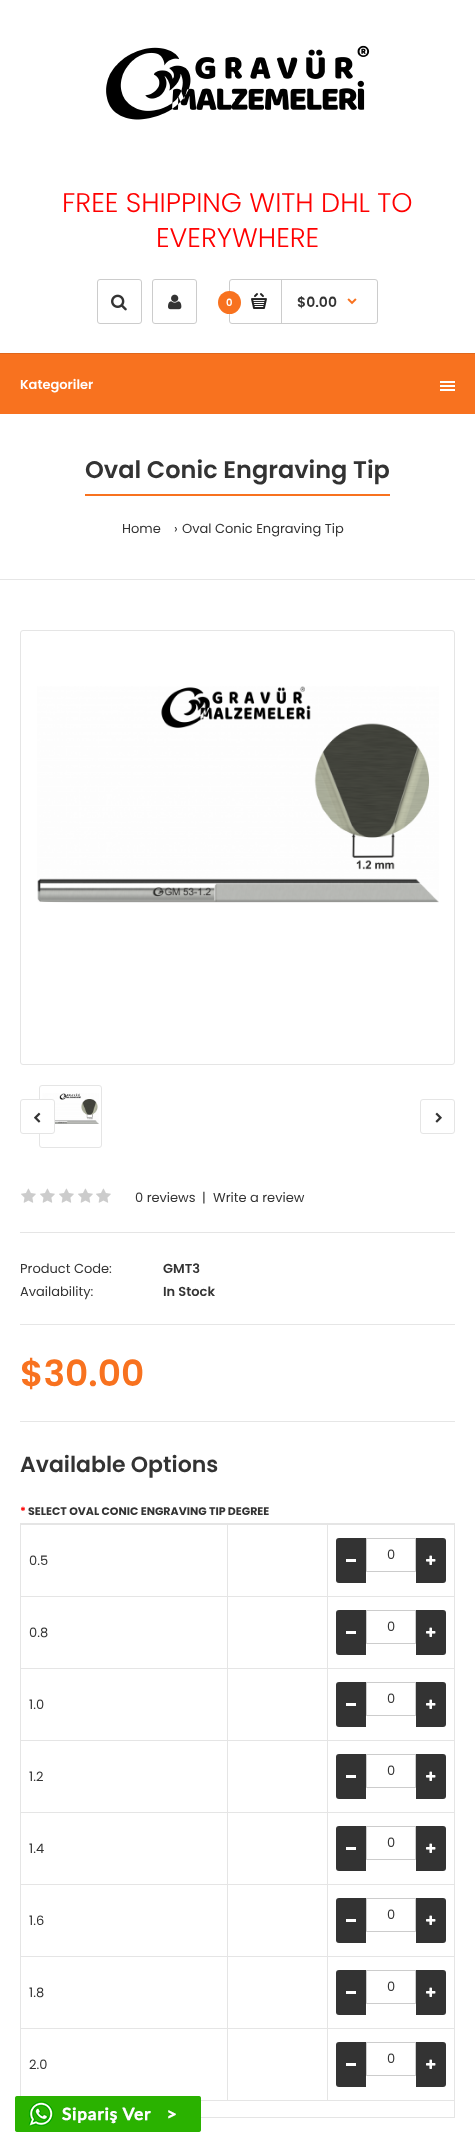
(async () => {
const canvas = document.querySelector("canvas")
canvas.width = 475
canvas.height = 2153
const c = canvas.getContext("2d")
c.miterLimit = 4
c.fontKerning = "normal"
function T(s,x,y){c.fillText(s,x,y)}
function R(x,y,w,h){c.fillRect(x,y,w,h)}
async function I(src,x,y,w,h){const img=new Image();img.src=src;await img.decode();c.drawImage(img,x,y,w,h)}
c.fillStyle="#fff"
R(0,0,475,2153)
await I("1.png",106,45,264,75)
c.font="300 27px Poppins"
c.fillStyle="#f00"
T("FREE SHIPPING WITH DHL TO",62,212)
T("EVERYWHERE",156,247)
c.beginPath()
c.roundRect(97.5,279.5,44,44,2.5)
c.strokeStyle="#ccc"
c.stroke()
await I("2.png",111,294,16,17)
c.beginPath()
c.roundRect(152.5,279.5,44,44,2.5)
c.stroke()
await I("3.png",168,294,14,16)
c.beginPath()
c.roundRect(229.5,279.5,148,44,2.5)
c.stroke()
c.fillStyle="#f8721f"
c.beginPath()
c.arc(229.5,302.5,11.5,0,7)
c.fill()
c.font="600 10px Poppins"
c.fillStyle="#fff"
T("0",226,306)
c.fillStyle="#ccc"
R(281,280,1,43)
await I("4.png",251,293,16,16)
c.font="600 14px Poppins"
c.fillStyle="#333"
T("$0.00",297,307)
await I("5.png",347,298,10,7)
c.fillStyle="#f8721f"
R(0,354,475,60)
c.fillStyle="#df671c"
R(0,353,475,1)
c.font="600 13px Poppins"
c.fillStyle="#fff"
T("Kategoriler",20,389)
R(440,381,15,2)
R(440,385,15,2)
R(440,389,15,2)
c.fillStyle="#e6e6e6"
R(0,579,475,1)
c.fillStyle="#f8721f"
R(85,494,305,2)
c.font="600 24px Poppins"
c.fillStyle="#333"
T("Oval Conic Engraving Tip",85,478)
c.font="13px Poppins"
T("Home",122,533)
T("›",174,533)
T("Oval Conic Engraving Tip",182,533)
c.beginPath()
c.roundRect(20.5,630.5,434,434,2.5)
c.strokeStyle="#e5e5e5"
c.stroke()
await I("6.png",37,686,402,217)
c.beginPath()
c.roundRect(39.5,1085.5,62,62,2.5)
c.stroke()
await I("7.png",42,1093,57,31)
c.fillStyle="#fff"
c.beginPath()
c.roundRect(20.5,1099.5,34,34,2.5)
c.fill()
c.stroke()
await I("8.png",34,1112,7,11)
c.beginPath()
c.roundRect(420.5,1099.5,34,34,2.5)
c.stroke()
await I("9.png",435,1112,7,11)
c.fillStyle="#e5e5e5"
R(20,1232,435,1)
await I("10.png",21,1188,15,15)
await I("10.png",40,1188,15,15)
await I("10.png",59,1188,15,15)
await I("10.png",78,1188,15,15)
await I("10.png",96,1188,15,15)
c.fillStyle="#333"
T("0 reviews",135,1202)
T("|",202,1202)
T("Write a review",213,1202)
c.fillStyle="#e6e6e6"
R(20,1324,435,1)
c.fillStyle="#333"
T("Product Code:",20,1273)
c.font="600 13px Poppins"
T("GMT3",163,1273)
c.font="13px Poppins"
T("Availability:",20,1296)
c.font="600 13px Poppins"
T("In Stock",163,1296)
c.font="600 36px Poppins"
c.fillStyle="#f8721f"
T("$30.00",20,1386)
c.fillStyle="#e6e6e6"
R(20,1421,435,1)
c.font="600 22px Poppins"
c.fillStyle="#333"
T("Available Options",20,1472)
c.font="bold 11px Poppins"
c.fillStyle="#f00"
T("*",20,1515)
c.fillStyle="#333"
T("SELECT OVAL CONIC ENGRAVING TIP DEGREE",28,1515)
c.strokeRect(20.5,1523.5,434,594)
c.fillStyle="#e5e5e5"
R(21,1524,433,1)
R(227,1524,1,72)
R(327,1524,1,72)
c.fillStyle="#333"
c.beginPath()
c.roundRect(336,1538,30,45,[3,0,0,3])
c.fill()
c.fillStyle="#fff"
R(346,1559,10,3)
c.strokeStyle="#ccc"
c.strokeRect(366.5,1538.5,49,33)
c.font="13px Poppins"
c.fillStyle="#333"
T("0",387,1559)
c.beginPath()
c.roundRect(416,1538,30,45,[0,3,3,0])
c.fill()
await I("11.png",426,1555,10,10)
T("0.5",29,1565)
c.fillStyle="#e5e5e5"
R(21,1596,433,1)
R(227,1596,1,72)
R(327,1596,1,72)
c.fillStyle="#333"
c.beginPath()
c.roundRect(336,1610,30,45,[3,0,0,3])
c.fill()
c.fillStyle="#fff"
R(346,1631,10,3)
c.strokeRect(366.5,1610.5,49,33)
c.fillStyle="#333"
T("0",387,1631)
c.beginPath()
c.roundRect(416,1610,30,45,[0,3,3,0])
c.fill()
await I("11.png",426,1627,10,10)
T("0.8",29,1637)
c.fillStyle="#e5e5e5"
R(21,1668,433,1)
R(227,1668,1,72)
R(327,1668,1,72)
c.fillStyle="#333"
c.beginPath()
c.roundRect(336,1682,30,45,[3,0,0,3])
c.fill()
c.fillStyle="#fff"
R(346,1703,10,3)
c.strokeRect(366.5,1682.5,49,33)
c.fillStyle="#333"
T("0",387,1703)
c.beginPath()
c.roundRect(416,1682,30,45,[0,3,3,0])
c.fill()
await I("11.png",426,1699,10,10)
T("1.0",29,1709)
c.fillStyle="#e5e5e5"
R(21,1740,433,1)
R(227,1740,1,72)
R(327,1740,1,72)
c.fillStyle="#333"
c.beginPath()
c.roundRect(336,1754,30,45,[3,0,0,3])
c.fill()
c.fillStyle="#fff"
R(346,1775,10,3)
c.strokeRect(366.5,1754.5,49,33)
c.fillStyle="#333"
T("0",387,1775)
c.beginPath()
c.roundRect(416,1754,30,45,[0,3,3,0])
c.fill()
await I("11.png",426,1771,10,10)
T("1.2",29,1781)
c.fillStyle="#e5e5e5"
R(21,1812,433,1)
R(227,1812,1,72)
R(327,1812,1,72)
c.fillStyle="#333"
c.beginPath()
c.roundRect(336,1826,30,45,[3,0,0,3])
c.fill()
c.fillStyle="#fff"
R(346,1847,10,3)
c.strokeRect(366.5,1826.5,49,33)
c.fillStyle="#333"
T("0",387,1847)
c.beginPath()
c.roundRect(416,1826,30,45,[0,3,3,0])
c.fill()
await I("11.png",426,1843,10,10)
T("1.4",29,1853)
c.fillStyle="#e5e5e5"
R(21,1884,433,1)
R(227,1884,1,72)
R(327,1884,1,72)
c.fillStyle="#333"
c.beginPath()
c.roundRect(336,1898,30,45,[3,0,0,3])
c.fill()
c.fillStyle="#fff"
R(346,1919,10,3)
c.strokeRect(366.5,1898.5,49,33)
c.fillStyle="#333"
T("0",387,1919)
c.beginPath()
c.roundRect(416,1898,30,45,[0,3,3,0])
c.fill()
await I("11.png",426,1915,10,10)
T("1.6",29,1925)
c.fillStyle="#e5e5e5"
R(21,1956,433,1)
R(227,1956,1,72)
R(327,1956,1,72)
c.fillStyle="#333"
c.beginPath()
c.roundRect(336,1970,30,45,[3,0,0,3])
c.fill()
c.fillStyle="#fff"
R(346,1991,10,3)
c.strokeRect(366.5,1970.5,49,33)
c.fillStyle="#333"
T("0",387,1991)
c.beginPath()
c.roundRect(416,1970,30,45,[0,3,3,0])
c.fill()
await I("11.png",426,1987,10,10)
T("1.8",29,1997)
c.fillStyle="#e5e5e5"
R(21,2028,433,1)
R(227,2028,1,72)
R(327,2028,1,72)
c.fillStyle="#333"
c.beginPath()
c.roundRect(336,2042,30,45,[3,0,0,3])
c.fill()
c.fillStyle="#fff"
R(346,2063,10,3)
c.strokeRect(366.5,2042.5,49,33)
c.fillStyle="#333"
T("0",387,2063)
c.beginPath()
c.roundRect(416,2042,30,45,[0,3,3,0])
c.fill()
await I("11.png",426,2059,10,10)
T("2.0",29,2069)
c.fillStyle="#e5e5e5"
R(201,2100,253,1)
await I("12.png",15,2096,186,36)
})()
